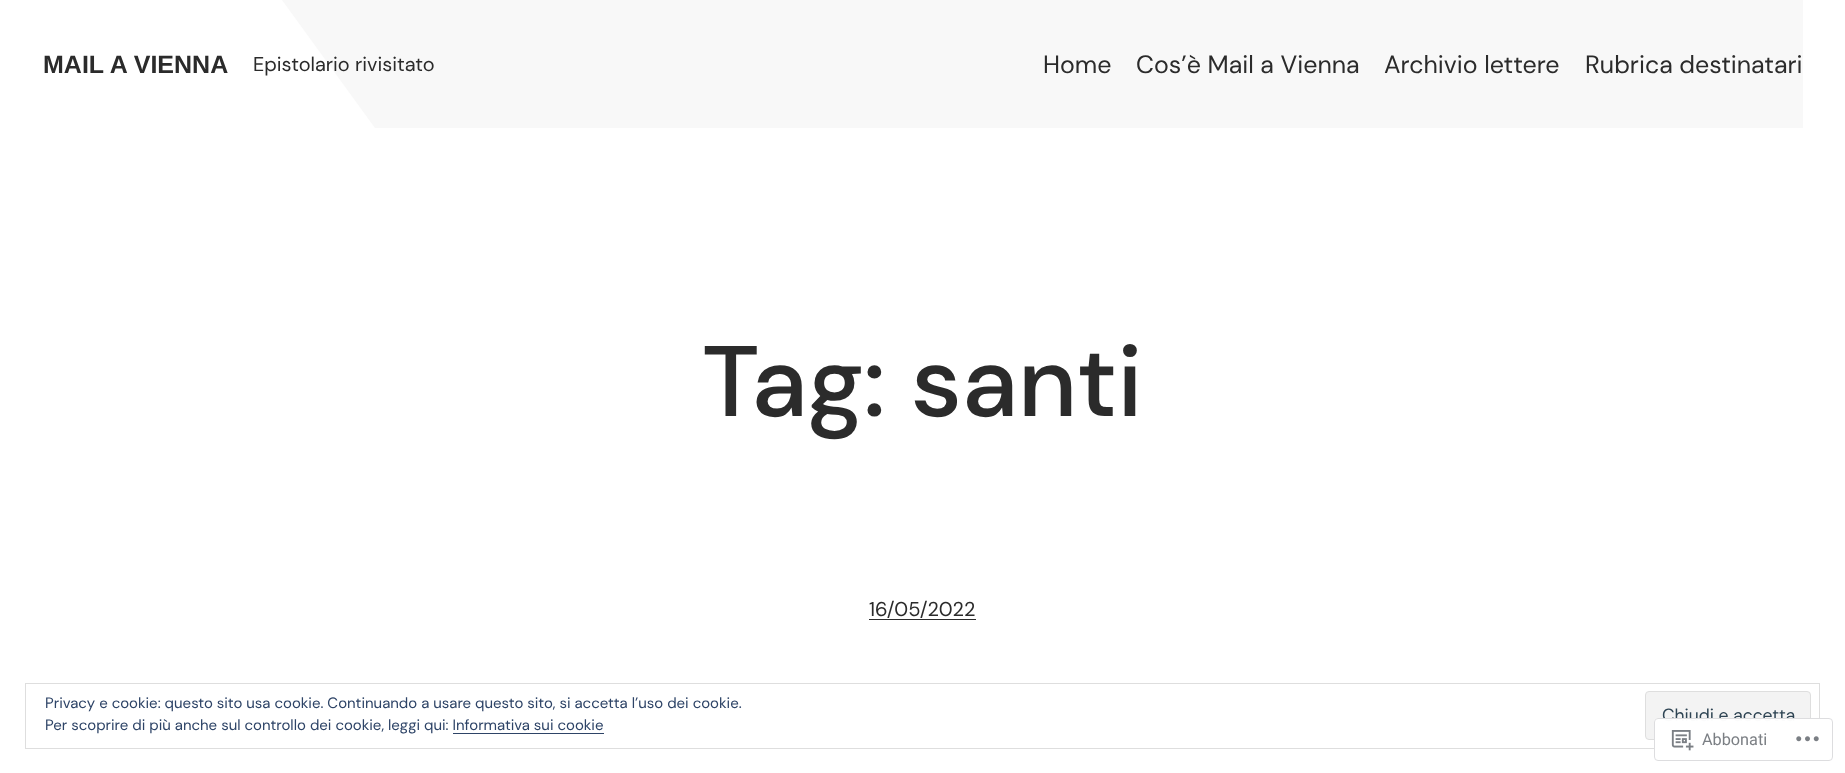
(async () => {
const canvas = document.querySelector("canvas")
canvas.width = 1845
canvas.height = 773
const c = canvas.getContext("2d")
c.miterLimit = 4
c.fontKerning = "normal"
function T(s,x,y){c.fillText(s,x,y)}
function R(x,y,w,h){c.fillRect(x,y,w,h)}
function Q(x,y,w,h,r){c.beginPath();c.roundRect(x,y,w,h,r);c.fill()}
async function I(src,x,y,w,h){const img=new Image();img.src=src;await img.decode();c.drawImage(img,x,y,w,h)}
let path
c.fillStyle="#fff"
R(0,0,1845,773)
c.fillStyle="#f8f8f8"
path = new Path2D("M282 0l93 128h1428v-128z")
c.fill(path)
c.font="bold 25px Liberation Sans"
c.fillStyle="#2b2b2b"
T("MAIL A VIENNA",43,73)
c.font="20px DM Sans"
T("Epistolario rivisitato",253,71)
c.font="25px DM Sans"
T("Home",1043,73)
T("Cos’è Mail a Vienna",1136,73)
T("Archivio lettere",1384,73)
T("Rubrica destinatari",1585,73)
c.font="500 100px DM Sans"
T("Tag: santi",702,416)
c.font="20px DM Sans"
T("16/05/2022",869,616)
R(869,619,107,1)
c.strokeStyle="#dedede"
c.strokeRect(25.5,683.5,1794,65)
c.font="15px DM Sans"
c.fillStyle="#2e4467"
T("Privacy e cookie: questo sito usa cookie. Continuando a usare questo sito, si accetta l’uso dei cookie.",45,708)
c.fillStyle="#f3f3f3"
c.beginPath()
c.roundRect(1645.5,691.5,165,48,3.5)
c.fill()
c.stroke()
c.font="17.5px DM Sans"
c.fillStyle="#2e4453"
T("Chiudi e accetta",1662,721)
c.font="15px DM Sans"
c.fillStyle="#2e4467"
T("Per scoprire di più anche sul controllo dei cookie, leggi qui: Informativa sui cookie",45,730)
R(453,733,151,1)
c.fillStyle="#fffffffa"
Q(1654,718,179,43,4)
c.beginPath()
c.roundRect(1654.5,718.5,178,42,3.5)
c.strokeStyle="#dcdcdefa"
c.stroke()
await I("1.png",1671,730,23,21)
c.font="16.25px Roboto"
c.fillStyle="#7b7f84"
T("Abbonati",1702,745)
await I("2.png",1796,736,23,6)
})()
